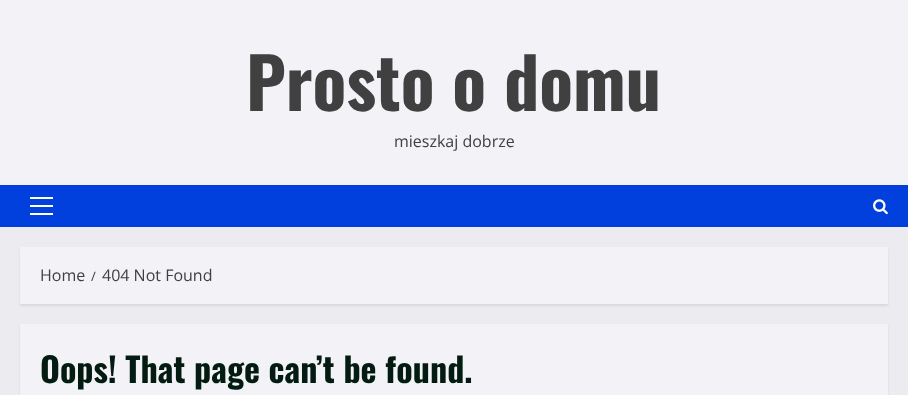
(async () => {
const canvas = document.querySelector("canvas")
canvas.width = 908
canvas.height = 395
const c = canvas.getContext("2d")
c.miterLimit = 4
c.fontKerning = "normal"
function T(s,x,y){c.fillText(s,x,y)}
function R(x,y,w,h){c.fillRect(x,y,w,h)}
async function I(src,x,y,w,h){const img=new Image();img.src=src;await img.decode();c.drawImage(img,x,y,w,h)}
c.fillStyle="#ebebf0"
R(0,0,908,395)
c.fillStyle="#f2f2f7"
R(0,0,908,185)
c.font="bold 70px Oswald"
c.fillStyle="#404040"
T("Prosto o domu",246,111)
c.font="16px Open Sans"
T("mieszkaj dobrze",394,147)
c.fillStyle="#0140dd"
R(0,185,908,42)
c.fillStyle="#fff"
R(30,205,23,2)
R(30,197,23,2)
R(30,213,23,2)
await I("1.png",873,199,15,16)
c.fillStyle="#00000014"
c.filter="blur(1px)"
c.beginPath()
c.rect(20,249,868,57)
c.fill()
c.filter="none"
c.fillStyle="#f2f2f7"
R(20,247,868,57)
c.fillStyle="#404040"
T("Home",40,281)
c.font="13px Open Sans"
T("/",91,281)
c.font="16px Open Sans"
T("404 Not Found",102,281)
c.fillStyle="#00000014"
c.filter="blur(1px)"
c.beginPath()
c.rect(20,326,868,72)
c.fill()
c.filter="none"
c.fillStyle="#f2f2f7"
R(20,324,868,71)
c.font="bold 34px Oswald"
c.fillStyle="#031b11"
T("Oops! That page can’t be found.",40,383)
})()
